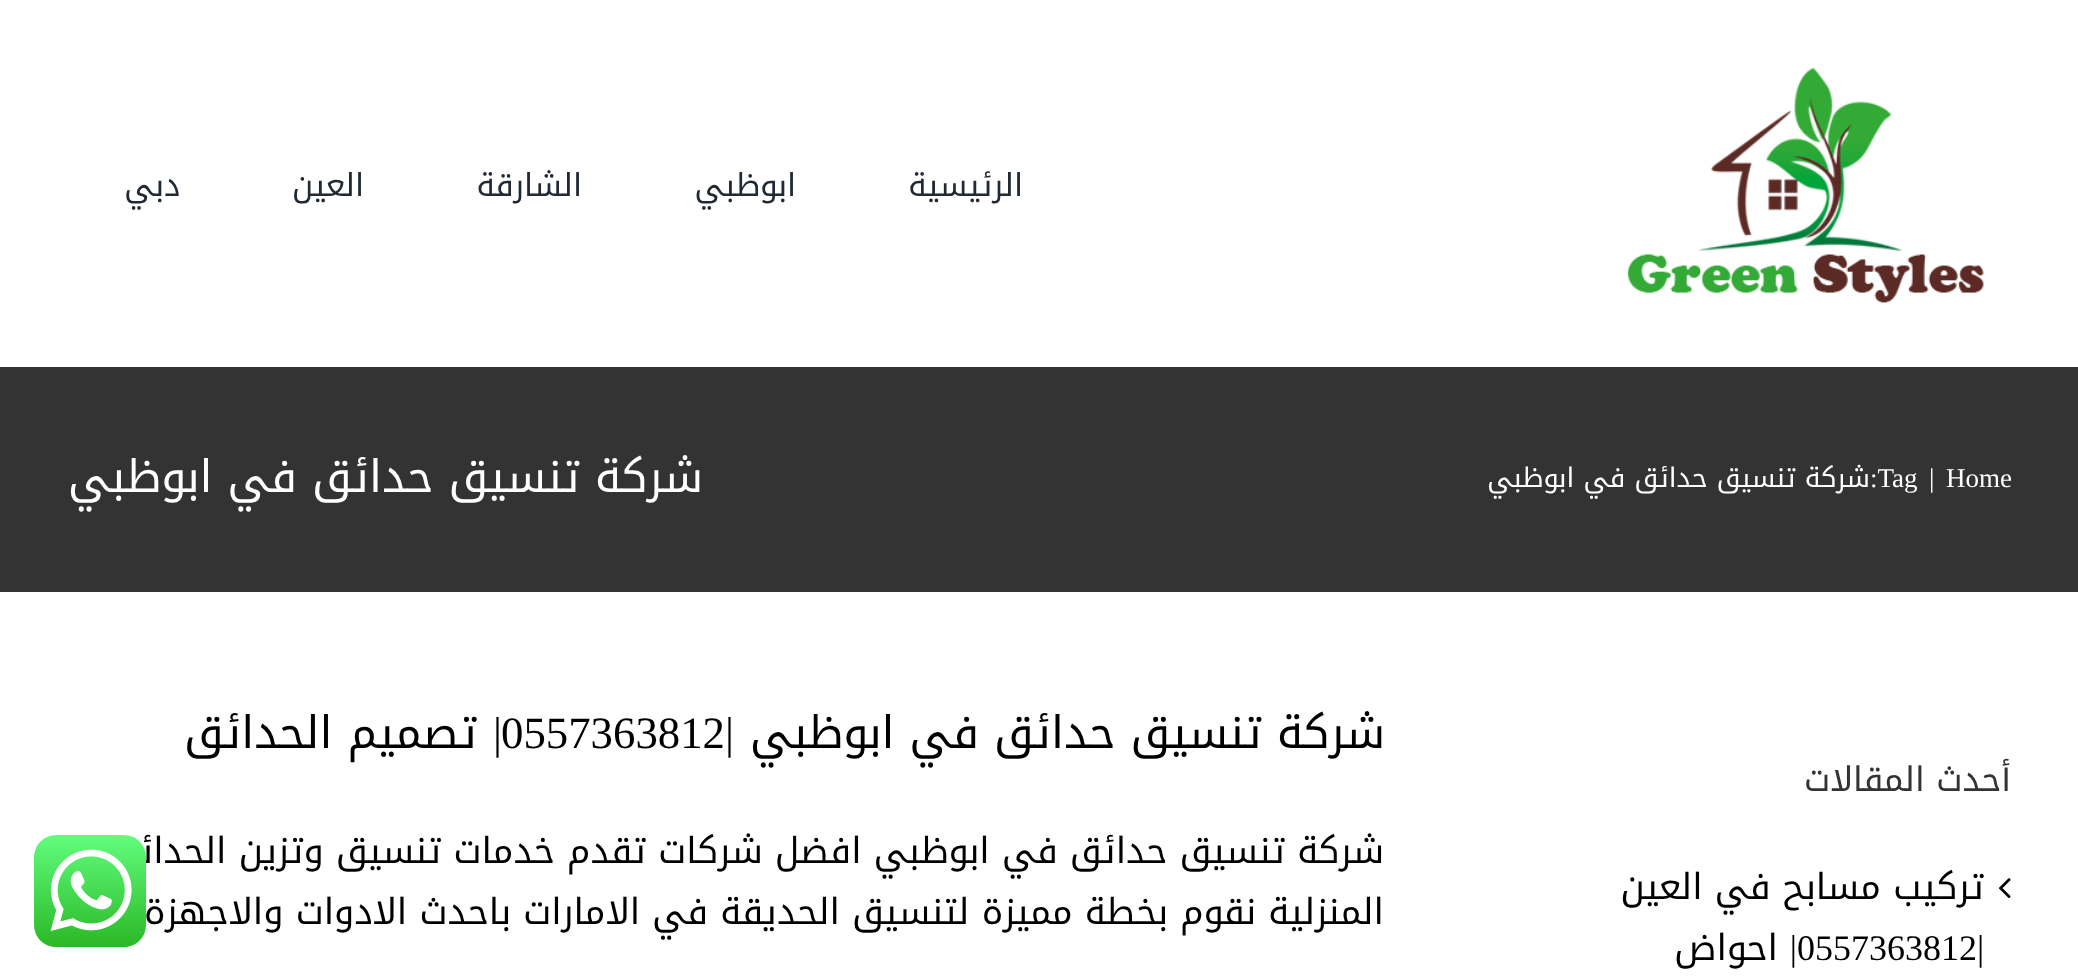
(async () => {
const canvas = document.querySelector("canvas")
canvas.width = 2078
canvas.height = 980
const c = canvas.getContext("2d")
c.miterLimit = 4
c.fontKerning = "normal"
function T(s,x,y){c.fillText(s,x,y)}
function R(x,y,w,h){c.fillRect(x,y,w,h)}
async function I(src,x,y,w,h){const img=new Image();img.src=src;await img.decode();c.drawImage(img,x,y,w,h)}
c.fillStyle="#fff"
R(0,0,2078,980)
await I("1.png",1627,68,357,235)
c.direction="rtl"
c.font="31.5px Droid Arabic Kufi"
c.fillStyle="#212934"
T("الرئيسية",1023,196)
T("ابوظبي",796,196)
T("الشارقة",582,196)
T("العين",364,196)
T("دبي",180,196)
c.fillStyle="#333"
R(0,367,2078,225)
c.direction="ltr"
c.font="27px Liberation Serif"
c.fillStyle="#fff"
T("Home",1946,487)
T("|",1929,487)
T(":Tag",1870,487)
c.direction="rtl"
c.font="27px Droid Arabic Kufi"
T("شركة تنسيق حدائق في ابوظبي",1870,487)
c.font="44.8px Droid Arabic Kufi"
T("شركة تنسيق حدائق في ابوظبي",703,492)
c.font="33.75px Droid Arabic Kufi"
c.fillStyle="#333"
T("أحدث المقالات",2011,791)
await I("2.png",1999,878,12,21)
c.font="36px Droid Arabic Kufi"
c.fillStyle="#000"
T("تركيب مسابح في العين",1984,899)
c.direction="ltr"
c.font="36px Liberation Serif"
T("0557363812|",1797,960)
c.direction="rtl"
T("|",1797,960)
c.font="36px Droid Arabic Kufi"
T("احواض",1778,960)
c.font="44.8px Droid Arabic Kufi"
T("شركة تنسيق حدائق في ابوظبي",1385,748)
c.font="44.8px Liberation Serif"
T("|",734,748)
c.direction="ltr"
T("0557363812",501,748)
c.direction="rtl"
T("|",502,748)
c.font="44.8px Droid Arabic Kufi"
T("تصميم الحدائق",477,748)
c.font="36px Droid Arabic Kufi"
T("شركة تنسيق حدائق في ابوظبي افضل شركات تقدم خدمات تنسيق وتزين الحدائق",1384,863)
T("المنزلية نقوم بخطة مميزة لتنسيق الحديقة في الامارات باحدث الادوات والاجهزة",1384,924)
await I("3.png",34,835,112,112)
})()
